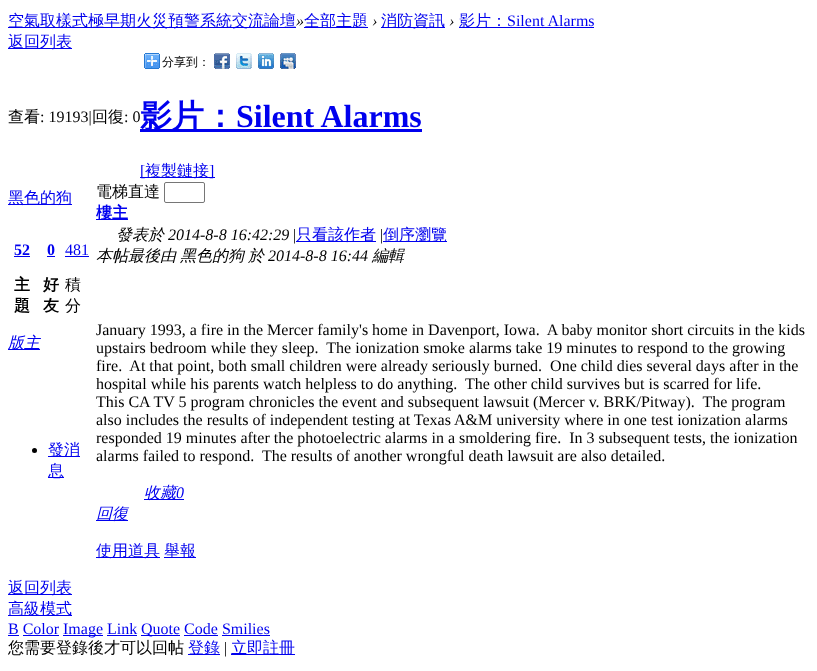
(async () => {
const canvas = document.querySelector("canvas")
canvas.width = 817
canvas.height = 671
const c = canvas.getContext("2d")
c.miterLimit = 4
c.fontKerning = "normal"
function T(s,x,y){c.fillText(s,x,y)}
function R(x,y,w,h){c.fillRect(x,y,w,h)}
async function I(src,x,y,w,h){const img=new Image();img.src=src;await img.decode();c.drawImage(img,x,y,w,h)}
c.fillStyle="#fff"
R(0,0,817,671)
c.fillStyle="#00e"
R(8,27,288,1)
c.font="500 16px WenQuanYi Zen Hei"
T("空氣取樣式極早期火災預警系統交流論壇",8,26)
c.font="italic 16px Liberation Serif"
c.fillStyle="#000"
T("»",296,26)
c.fillStyle="#00e"
R(304,27,64,1)
c.font="500 16px WenQuanYi Zen Hei"
T("全部主題",304,26)
c.font="italic 16px Liberation Serif"
c.fillStyle="#000"
T("›",372,26)
c.fillStyle="#00e"
R(381,27,64,1)
c.font="500 16px WenQuanYi Zen Hei"
T("消防資訊",381,26)
c.font="italic 16px Liberation Serif"
c.fillStyle="#000"
T("›",449,26)
c.fillStyle="#00e"
R(459,27,135,1)
c.font="500 16px WenQuanYi Zen Hei"
T("影片：",459,26)
c.font="16px Liberation Serif"
T("Silent Alarms",507,26)
R(8,48,64,1)
c.font="500 16px WenQuanYi Zen Hei"
T("返回列表",8,47)
c.fillStyle="#000"
T("查看",8,122)
c.font="16px Liberation Serif"
T(": 19193|",40,122)
c.font="500 16px WenQuanYi Zen Hei"
T("回復",92,122)
c.font="16px Liberation Serif"
T(": 0",124,122)
await I("1.png",144,53,16,16)
c.font="500 12px WenQuanYi Zen Hei"
T("分享到：",162,66)
await I("2.png",214,53,16,16)
await I("3.png",236,53,16,16)
await I("4.png",258,53,16,16)
await I("5.png",280,53,16,16)
c.fillStyle="#00e"
R(140,129,282,3)
c.font="bold 32px WenQuanYi Zen Hei"
T("影片：",140,127)
c.font="bold 32px Liberation Serif"
T("Silent Alarms",236,127)
R(140,177,75,1)
c.font="16px Liberation Serif"
T("[",140,176)
c.font="500 16px WenQuanYi Zen Hei"
T("複製鏈接",145,176)
c.font="16px Liberation Serif"
T("]",209,176)
R(8,204,64,1)
c.font="500 16px WenQuanYi Zen Hei"
T("黑色的狗",8,203)
c.font="bold 16px Liberation Serif"
T("52",14,255)
R(14,256,16,1)
c.font="bold 16px WenQuanYi Zen Hei"
c.fillStyle="#000"
T("主",14,290)
T("題",14,311)
c.font="bold 16px Liberation Serif"
c.fillStyle="#00e"
T("0",47,255)
R(47,256,8,1)
c.font="bold 16px WenQuanYi Zen Hei"
c.fillStyle="#000"
T("好",43,290)
T("友",43,311)
c.font="16px Liberation Serif"
c.fillStyle="#00e"
T("481",65,255)
R(65,256,24,1)
c.font="500 16px WenQuanYi Zen Hei"
c.fillStyle="#000"
T("積",65,290)
T("分",65,311)
c.fillStyle="#00e"
R(8,349,32,1)
c.font="italic 500 16px WenQuanYi Zen Hei"
T("版主",8,348)
c.fillStyle="#000"
c.beginPath()
c.arc(34.5,450.5,2.5,0,7)
c.fill()
c.fillStyle="#00e"
R(48,456,32,1)
c.font="500 16px WenQuanYi Zen Hei"
T("發消",48,455)
R(48,477,16,1)
T("息",48,476)
c.fillStyle="#000"
T("電梯直達",96,197)
c.beginPath()
c.roundRect(164.5,182.5,40,20,1.5)
c.strokeStyle="#767676"
c.stroke()
c.fillStyle="#00e"
R(96,219,32,1)
c.font="bold 16px WenQuanYi Zen Hei"
T("樓主",96,218)
c.font="italic 500 16px WenQuanYi Zen Hei"
c.fillStyle="#000"
T("發表於",116,240)
c.font="italic 16px Liberation Serif"
T("2014-8-8 16:42:29",168,240)
c.font="16px Liberation Serif"
T("|",293,240)
c.fillStyle="#00e"
R(296,241,80,1)
c.font="500 16px WenQuanYi Zen Hei"
T("只看該作者",296,240)
c.font="16px Liberation Serif"
c.fillStyle="#000"
T("|",380,240)
c.fillStyle="#00e"
R(383,241,64,1)
c.font="500 16px WenQuanYi Zen Hei"
T("倒序瀏覽",383,240)
c.font="italic 500 16px WenQuanYi Zen Hei"
c.fillStyle="#000"
T("本帖最後由",96,261)
T("黑色的狗",180,261)
T("於",248,261)
c.font="italic 16px Liberation Serif"
T("2014-8-8 16:44",268,261)
c.font="italic 500 16px WenQuanYi Zen Hei"
T("編輯",372,261)
c.font="16px Liberation Serif"
T("January 1993, a fire in the Mercer family's home in Davenport, Iowa.  A baby monitor short circuits in the kids",96,335)
T("upstairs bedroom while they sleep.  The ionization smoke alarms take 19 minutes to respond to the growing",96,353)
T("fire.  At that point, both small children were already seriously burned.  One child dies several days after in the",96,371)
T("hospital while his parents watch helpless to do anything.  The other child survives but is scarred for life.",96,389)
T("This CA TV 5 program chronicles the event and subsequent lawsuit (Mercer v. BRK/Pitway).  The program",96,407)
T("also includes the results of independent testing at Texas A&M university where in one test ionization alarms",96,425)
T("responded 19 minutes after the photoelectric alarms in a smoldering fire.  In 3 subsequent tests, the ionization",96,443)
T("alarms failed to respond.  The results of another wrongful death lawsuit are also detailed.",96,461)
c.fillStyle="#00e"
R(144,499,32,1)
c.font="italic 500 16px WenQuanYi Zen Hei"
T("收藏",144,498)
c.font="italic 16px Liberation Serif"
T("0",176,498)
R(176,499,8,1)
R(96,520,32,1)
c.font="italic 500 16px WenQuanYi Zen Hei"
T("回復",96,519)
R(96,557,64,1)
c.font="500 16px WenQuanYi Zen Hei"
T("使用道具",96,556)
R(164,557,32,1)
T("舉報",164,556)
R(8,594,64,1)
T("返回列表",8,593)
R(8,615,64,1)
T("高級模式",8,614)
c.font="16px Liberation Serif"
T("B Color",8,634)
R(8,635,11,1)
R(63,635,40,1)
T("Image Link",63,634)
R(141,635,39,1)
T("Quote Code Smilies",141,634)
R(23,635,36,1)
R(107,635,30,1)
R(184,635,34,1)
R(222,635,48,1)
c.font="500 16px WenQuanYi Zen Hei"
c.fillStyle="#000"
T("您需要登錄後才可以回帖",8,653)
c.fillStyle="#00e"
R(188,654,32,1)
T("登錄",188,653)
c.font="16px Liberation Serif"
c.fillStyle="#000"
T("|",224,653)
c.fillStyle="#00e"
R(231,654,64,1)
c.font="500 16px WenQuanYi Zen Hei"
T("立即註冊",231,653)
})()
